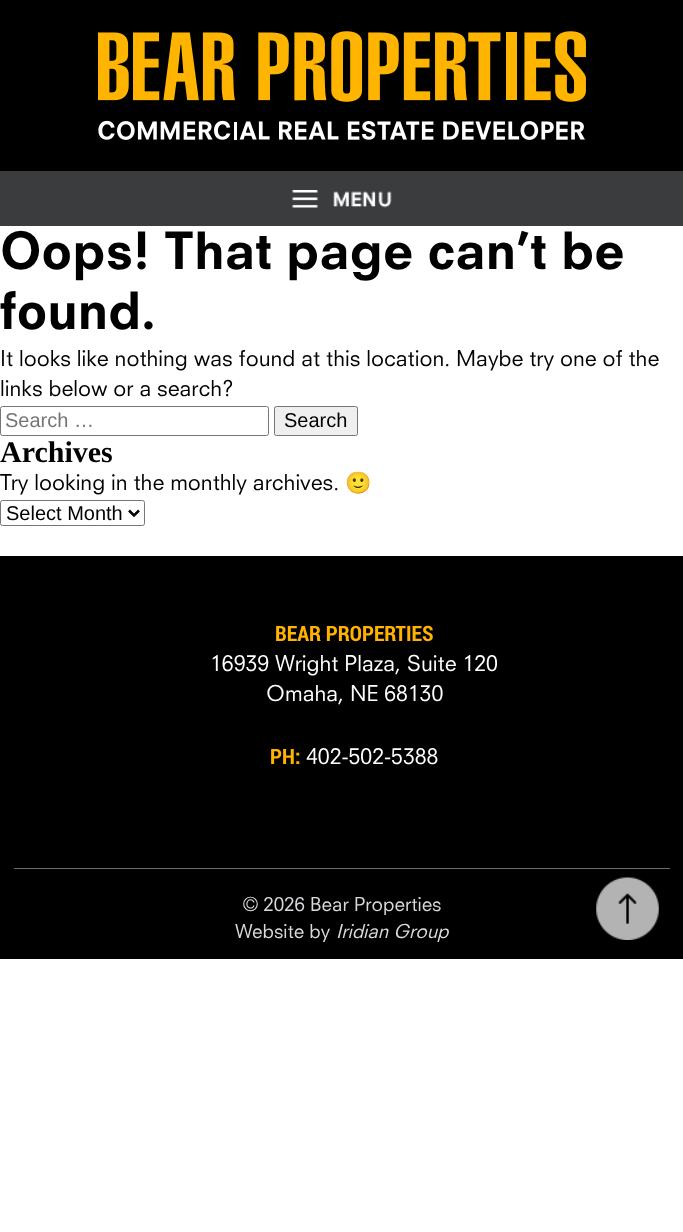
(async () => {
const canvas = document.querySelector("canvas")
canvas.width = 683
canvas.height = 1232
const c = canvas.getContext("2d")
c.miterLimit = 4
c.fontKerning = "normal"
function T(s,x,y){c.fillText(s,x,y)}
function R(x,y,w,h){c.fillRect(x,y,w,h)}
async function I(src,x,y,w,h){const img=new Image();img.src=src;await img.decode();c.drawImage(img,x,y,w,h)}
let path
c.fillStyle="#fff"
R(0,0,683,1232)
c.fillStyle="#000"
R(0,0,683,171)
await I("1.png",98,31,488,109)
c.fillStyle="#3a3c3e"
R(0,171,683,55)
await I("2.png",292,190,100,18)
c.font="900 50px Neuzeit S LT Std"
c.fillStyle="#000"
T("Oops! That page can’t be",0,269)
T("found.",0,329)
c.font="21.25px Neuzeit S LT Std"
T("It looks like nothing was found at this location. Maybe try one of the",0,366)
T("links below or a search?",0,396)
c.beginPath()
c.roundRect(.5,406.5,268,29,2)
c.strokeStyle="#767676"
c.stroke()
c.font="20px Liberation Sans"
c.fillStyle="#757575"
T("Search …",5,427)
c.fillStyle="#efefef"
c.beginPath()
c.roundRect(274.5,406.5,83,29,2)
c.fill()
c.stroke()
c.fillStyle="#000"
T("Search",284,427)
c.font="bold 30px Liberation Serif"
T("Archives",0,462)
c.font="21.25px Neuzeit S LT Std"
T("Try looking in the monthly archives.",0,490)
c.font="21.25px Noto Color Emoji"
T("🙂",345,490)
c.beginPath()
c.roundRect(.5,500.5,144,25,2)
c.stroke()
path = new Path2D("M129 510.5l5 5l5-5")
c.strokeStyle="#000"
c.lineWidth=2.5
c.stroke(path)
c.font="20px Liberation Sans"
T("Select Month",6,520)
R(0,556,683,403)
c.font="bold 21.25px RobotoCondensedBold"
c.fillStyle="#ffb200"
T("BEAR PROPERTIES",275,641)
c.font="21.25px Neuzeit S LT Std"
c.fillStyle="#fff"
T("16939 Wright Plaza, Suite 120",210,671)
T("Omaha, NE 68130",266,701)
c.font="bold 21.25px RobotoCondensedBold"
c.fillStyle="#ffb200"
T("PH:",270,764)
c.font="21.25px Neuzeit S LT Std"
c.fillStyle="#fff"
T("402-502-5388",306,764)
c.fillStyle="#6c6d6f"
R(14,868,656,1)
c.font="18.75px Neuzeit S LT Std"
c.fillStyle="#d9dadd"
T("© 2026 Bear Properties",243,911)
T("Website by",235,938)
c.font="italic 18.75px Neuzeit S LT Std"
T("Iridian Group",336,938)
await I("3.png",596,877,63,63)
})()
